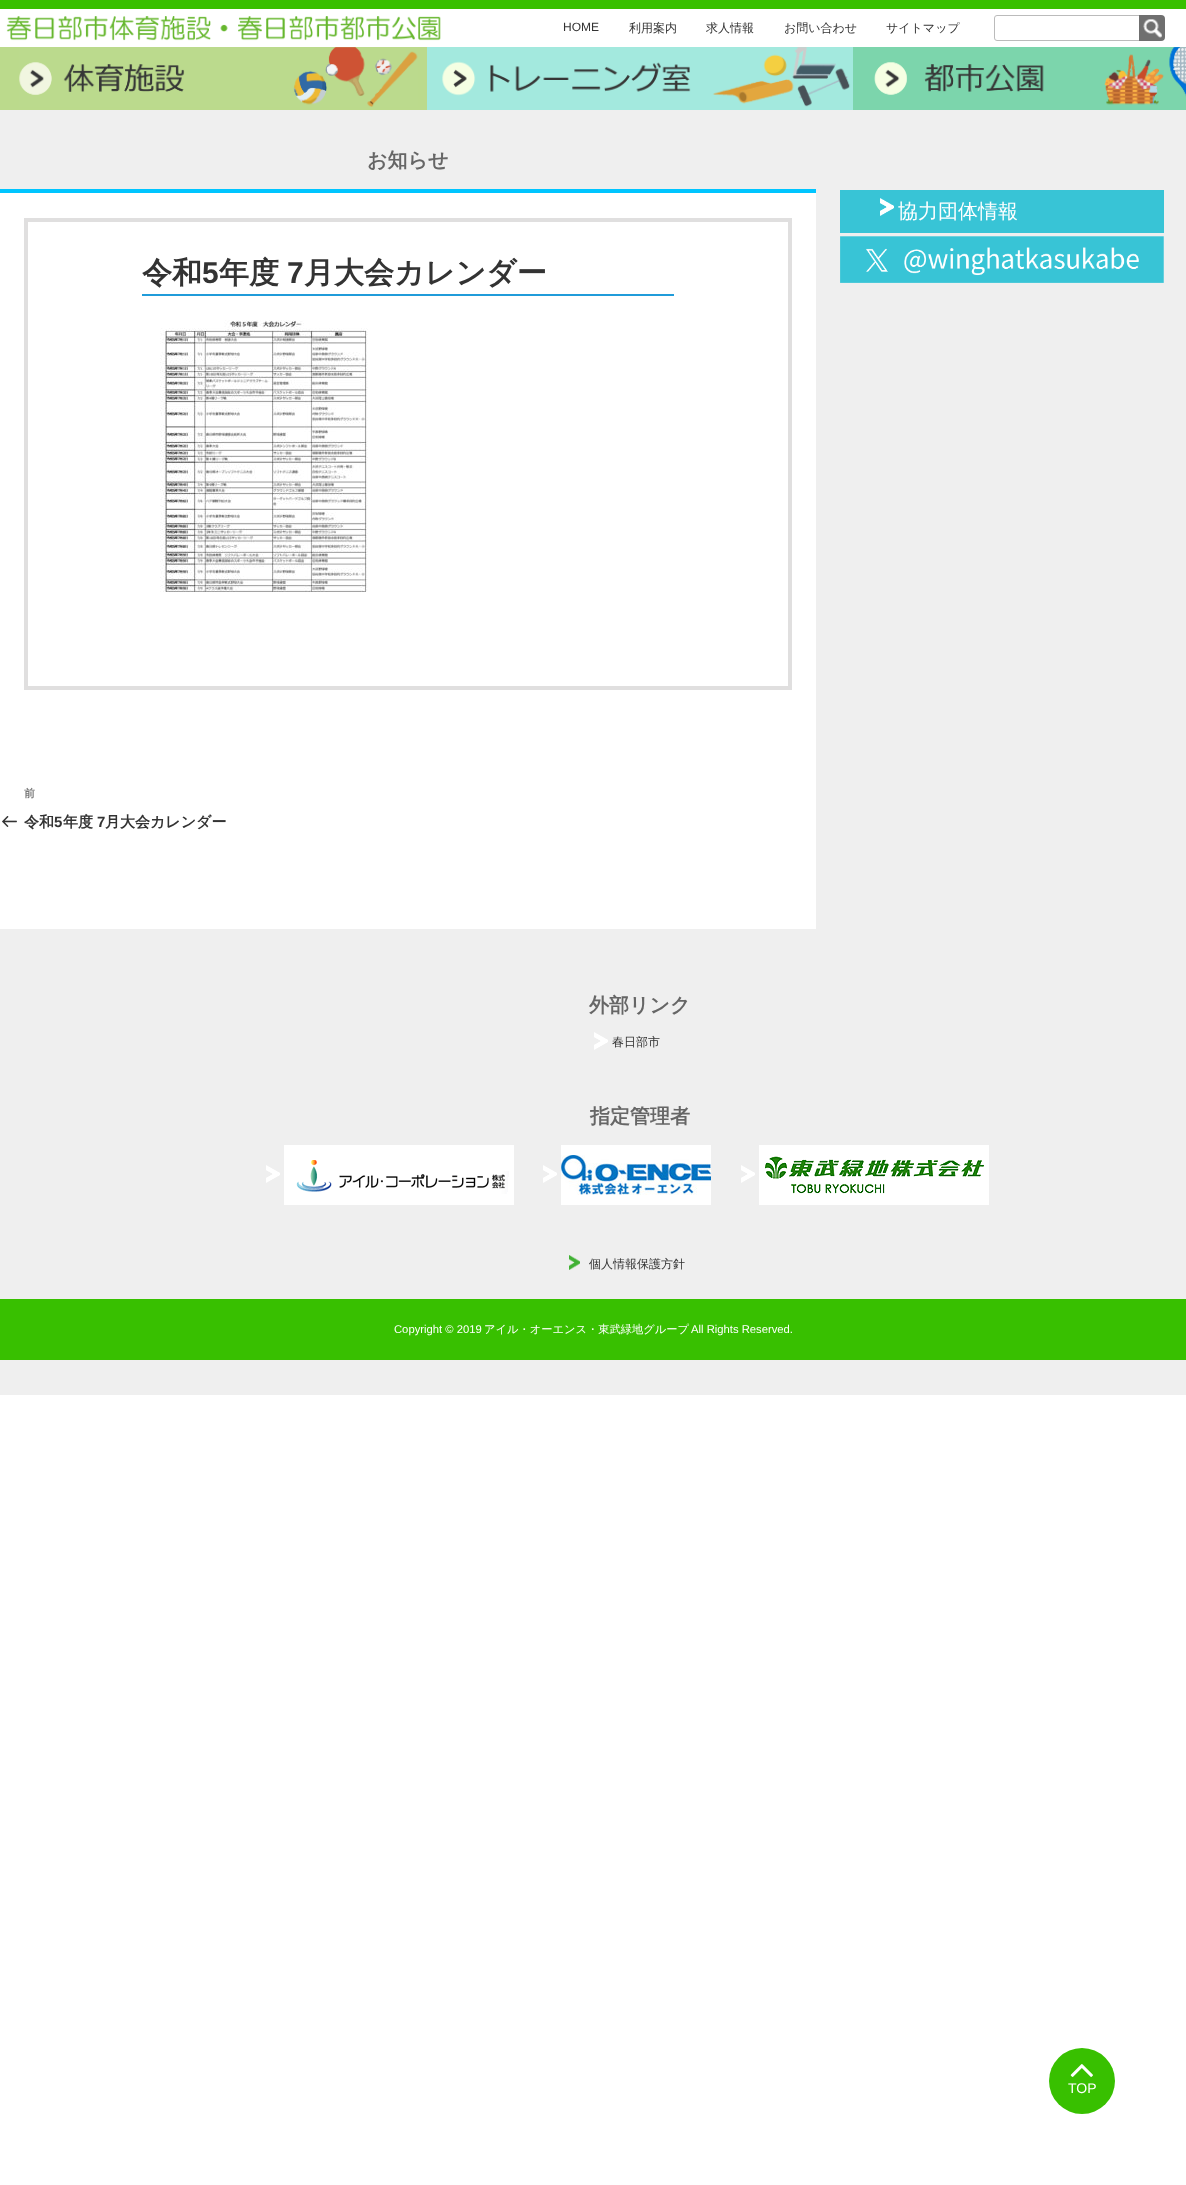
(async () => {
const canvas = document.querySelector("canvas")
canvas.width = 1186
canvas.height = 2185
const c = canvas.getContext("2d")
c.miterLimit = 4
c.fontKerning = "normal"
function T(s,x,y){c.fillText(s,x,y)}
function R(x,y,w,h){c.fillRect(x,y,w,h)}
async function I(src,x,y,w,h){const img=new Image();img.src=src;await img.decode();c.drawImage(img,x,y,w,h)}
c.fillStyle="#fff"
R(0,0,1186,2185)
c.fillStyle="#38c000"
R(0,0,1186,9)
await I("1.png",6,16,435,25)
c.font="12px Liberation Sans"
c.fillStyle="#333"
T("HOME",563,31)
c.font="500 12px WenQuanYi Zen Hei"
T("利用案内",629,32)
T("求人情報",706,32)
T("お問い合わせ",784,32)
T("サイトマップ",886,32)
c.beginPath()
c.roundRect(994.5,15.5,149,25,[2.5,0,0,2.5])
c.strokeStyle="#bbb"
c.stroke()
await I("2.png",1139,15,26,26)
c.fillStyle="#bbda8c"
R(0,47,1186,63)
await I("3.png",19,47,399,60)
await I("4.png",427,47,426,63)
await I("5.png",853,47,333,63)
c.fillStyle="#efefef"
R(0,110,1186,1285)
c.font="bold 20px WenQuanYi Zen Hei"
c.fillStyle="#666"
T("お知らせ",367,167)
c.fillStyle="#fff"
R(0,193,816,736)
c.fillStyle="#00c5ff"
R(0,189,816,4)
c.strokeStyle="#e0dfdf"
c.lineWidth=4
c.strokeRect(26,220,764,468)
c.fillStyle="#209cda"
R(142,294,532,2)
c.font="bold 30px WenQuanYi Zen Hei"
c.fillStyle="#333"
T("令和",142,283)
c.font="bold 30px Liberation Sans"
T("5",202,283)
c.font="bold 30px WenQuanYi Zen Hei"
T("年度",219,283)
c.font="bold 30px Liberation Sans"
T("7",287,283)
c.font="bold 30px WenQuanYi Zen Hei"
T("月大会カレンダー",304,283)
await I("6.png",160,320,208,272)
c.font="bold 11px WenQuanYi Zen Hei"
c.fillStyle="#767676"
T("前",24,797)
await I("7.png",2,816,15,11)
c.font="bold 15px WenQuanYi Zen Hei"
c.fillStyle="#333"
T("令和",24,827)
c.font="bold 15px Liberation Sans"
T("5",54,827)
c.font="bold 15px WenQuanYi Zen Hei"
T("年度",63,827)
c.font="bold 15px Liberation Sans"
T("7",97,827)
c.font="bold 15px WenQuanYi Zen Hei"
T("月大会カレンダー",105,827)
c.fillStyle="#38c4d6"
R(840,190,324,43)
await I("8.png",880,198,14,18)
c.font="500 20px WenQuanYi Zen Hei"
c.fillStyle="#fff"
T("協力団体情報",898,218)
await I("9.png",840,236,324,47)
c.font="bold 20px WenQuanYi Zen Hei"
c.fillStyle="#666"
T("外部リンク",589,1012)
await I("10.png",594,1032,14,18)
c.font="500 12px WenQuanYi Zen Hei"
c.fillStyle="#333"
T("春日部市",612,1046)
c.font="bold 20px WenQuanYi Zen Hei"
c.fillStyle="#666"
T("指定管理者",590,1123)
await I("10.png",266,1165,14,18)
await I("11.png",284,1145,230,60)
await I("10.png",543,1165,14,18)
await I("12.png",561,1145,150,60)
await I("13.png",741,1165,14,18)
await I("14.png",759,1145,230,60)
await I("15.png",569,1255,11,15)
c.font="500 12px WenQuanYi Zen Hei"
c.fillStyle="#333"
T("個人情報保護方針",589,1268)
c.fillStyle="#38c000"
R(0,1299,1186,61)
c.font="11.25px Liberation Sans"
c.fillStyle="#fff"
T("Copyright © 2019",394,1333)
c.font="500 11.25px WenQuanYi Zen Hei"
T("アイル・オーエンス・東武緑地グループ",484,1333)
c.font="11.25px Liberation Sans"
T("All Rights Reserved.",691,1333)
c.fillStyle="#38c000"
c.beginPath()
c.arc(1082,2081,33,0,7)
c.fill()
await I("16.png",1070,2064,23,13)
c.font="14px Liberation Sans"
c.fillStyle="#fff"
T("TOP",1068,2093)
})()
